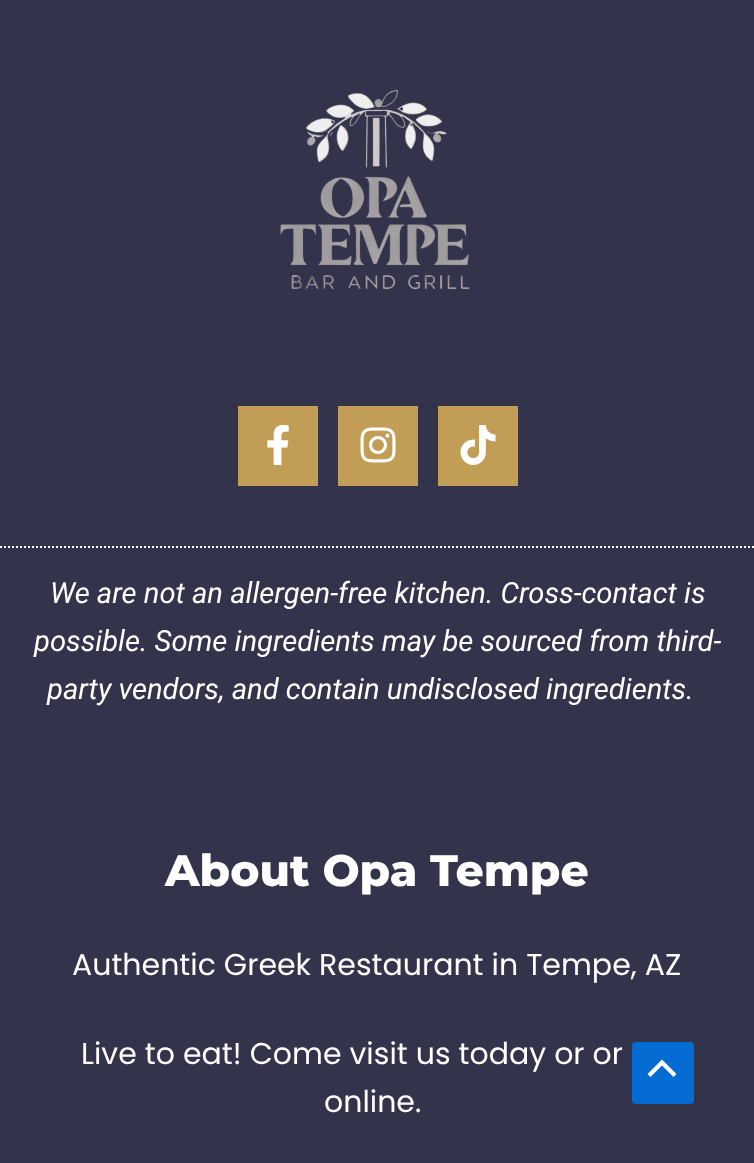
(async () => {
const canvas = document.querySelector("canvas")
canvas.width = 754
canvas.height = 1163
const c = canvas.getContext("2d")
c.miterLimit = 4
c.fontKerning = "normal"
function T(s,x,y){c.fillText(s,x,y)}
function R(x,y,w,h){c.fillRect(x,y,w,h)}
function Q(x,y,w,h,r){c.beginPath();c.roundRect(x,y,w,h,r);c.fill()}
async function I(src,x,y,w,h){const img=new Image();img.src=src;await img.decode();c.drawImage(img,x,y,w,h)}
let path
c.fillStyle="#34334c"
R(0,0,754,1163)
path = new Path2D("M0 547h754")
c.strokeStyle="#fff"
c.lineWidth=2
c.setLineDash([2,2])
c.stroke(path)
await I("1.png",280,89,190,201)
c.fillStyle="#c19d56"
R(238,406,80,80)
await I("2.png",267,425,22,40)
R(338,406,80,80)
await I("3.png",360,427,36,36)
R(438,406,80,80)
await I("4.png",460,425,36,40)
c.font="italic 29.2px Roboto"
c.fillStyle="#fff"
T("We are not an allergen-free kitchen. Cross-contact is",50,603)
T("possible. Some ingredients may be sourced from third-",34,651)
T("party vendors, and contain undisclosed ingredients.",47,699)
c.font="800 44px Montserrat"
T("About Opa Tempe",165,886)
c.font="30px Poppins"
T("Authentic Greek Restaurant in Tempe, AZ",72,975)
T("Live to eat! Come visit us today or or",81,1064)
T("online.",324,1112)
c.fillStyle="#046bd2"
Q(632,1042,62,62,4)
c.fillStyle="#fff"
path = new Path2D("M676.5 1074l-14.5-14.5l-14.5 14.5l3 3l11.5-11.5l11.5 11.5z")
c.fill(path)
})()
